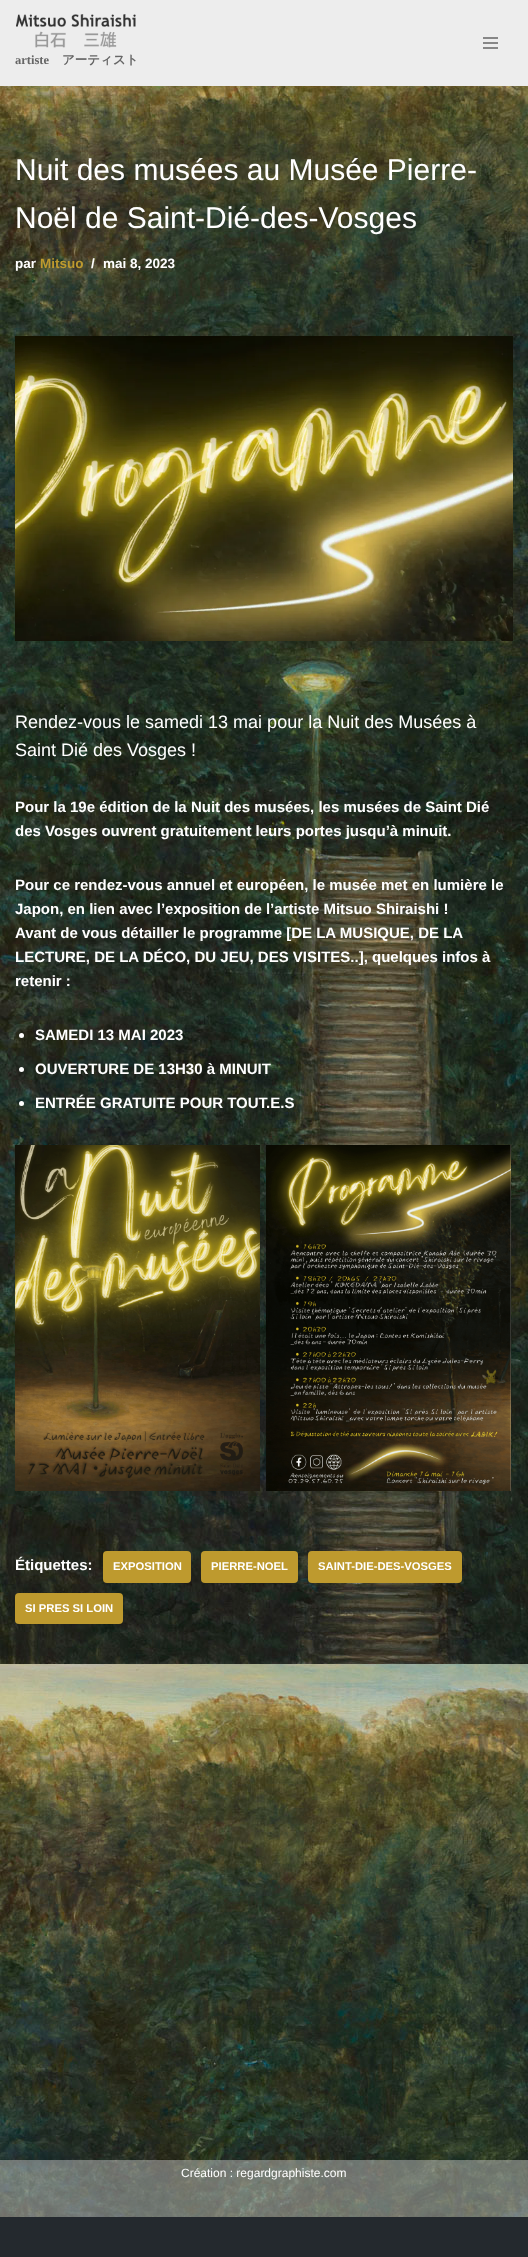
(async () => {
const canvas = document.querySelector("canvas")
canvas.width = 528
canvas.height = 2257
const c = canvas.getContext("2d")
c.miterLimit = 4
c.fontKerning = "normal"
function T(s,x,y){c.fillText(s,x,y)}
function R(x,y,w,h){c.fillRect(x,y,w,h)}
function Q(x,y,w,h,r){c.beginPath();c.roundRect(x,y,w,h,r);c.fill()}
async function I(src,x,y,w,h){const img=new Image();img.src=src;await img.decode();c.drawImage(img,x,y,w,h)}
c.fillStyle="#fff"
R(0,0,528,2257)
await I("1.png",0,86,528,2131)
c.fillStyle="#ededed"
R(0,0,528,86)
c.fillStyle="#878787"
R(483,37,15,2)
R(483,42,15,2)
R(483,47,15,2)
await I("2.png",16,14,120,34)
c.font="bold 12.5px Liberation Serif"
c.fillStyle="#666"
T("artiste",15,64)
c.font="bold 12.5px WenQuanYi Zen Hei"
T("アーティスト",62,64)
c.font="30px Liberation Sans"
c.fillStyle="#fff"
T("Nuit des musées au Musée Pierre-",15,180)
T("Noël de Saint-Dié-des-Vosges",15,228)
c.font="bold 13.5px Liberation Sans"
T("par",15,268)
c.fillStyle="#be9a2e"
T("Mitsuo",40,268)
c.fillStyle="#fff"
T("/",91,268)
T("mai 8, 2023",103,268)
await I("3.png",15,336,498,305)
c.font="18px Liberation Sans"
T("Rendez-vous le samedi 13 mai pour la Nuit des Musées à",15,728)
T("Saint Dié des Vosges !",15,756)
c.font="bold 15px Liberation Sans"
T("Pour la 19e édition de la Nuit des musées, les musées de Saint Dié",15,812)
T("des Vosges ouvrent gratuitement leurs portes jusqu’à minuit.",15,836)
T("Pour ce rendez-vous annuel et européen, le musée met en lumière le",15,890)
T("Japon, en lien avec l’exposition de l’artiste Mitsuo Shiraishi !",15,914)
T("Avant de vous détailler le programme [DE LA MUSIQUE, DE LA",15,938)
T("LECTURE, DE LA DÉCO, DU JEU, DES VISITES..], quelques infos à",15,962)
T("retenir :",15,986)
c.beginPath()
c.arc(21.5,1035.5,2.5,0,7)
c.fill()
T("SAMEDI 13 MAI 2023",35,1040)
c.beginPath()
c.arc(21.5,1069.5,2.5,0,7)
c.fill()
T("OUVERTURE DE 13H30 à MINUIT",35,1074)
c.beginPath()
c.arc(21.5,1103.5,2.5,0,7)
c.fill()
T("ENTRÉE GRATUITE POUR TOUT.E.S",35,1108)
await I("4.png",15,1145,245,346)
await I("5.png",266,1145,245,346)
T("Étiquettes:",15,1570)
c.fillStyle="#be9a2e"
Q(103,1551,88,32,4)
c.font="bold 11.25px Liberation Sans"
c.fillStyle="#fff"
T("EXPOSITION",113,1570)
c.fillStyle="#be9a2e"
Q(201,1551,97,32,4)
c.fillStyle="#fff"
T("PIERRE-NOEL",211,1570)
c.fillStyle="#be9a2e"
Q(308,1551,154,32,4)
c.fillStyle="#fff"
T("SAINT-DIE-DES-VOSGES",318,1570)
c.fillStyle="#be9a2e"
Q(15,1593,108,31,4)
c.fillStyle="#fff"
T("SI PRES SI LOIN",25,1612)
c.fillStyle="#cccccc45"
R(0,2160,528,57)
R(0,2160,528,57)
c.font="12px Liberation Sans"
c.fillStyle="#fff"
T("Création : regardgraphiste.com",181,2177)
c.fillStyle="#24292e"
R(0,2217,528,40)
})()
